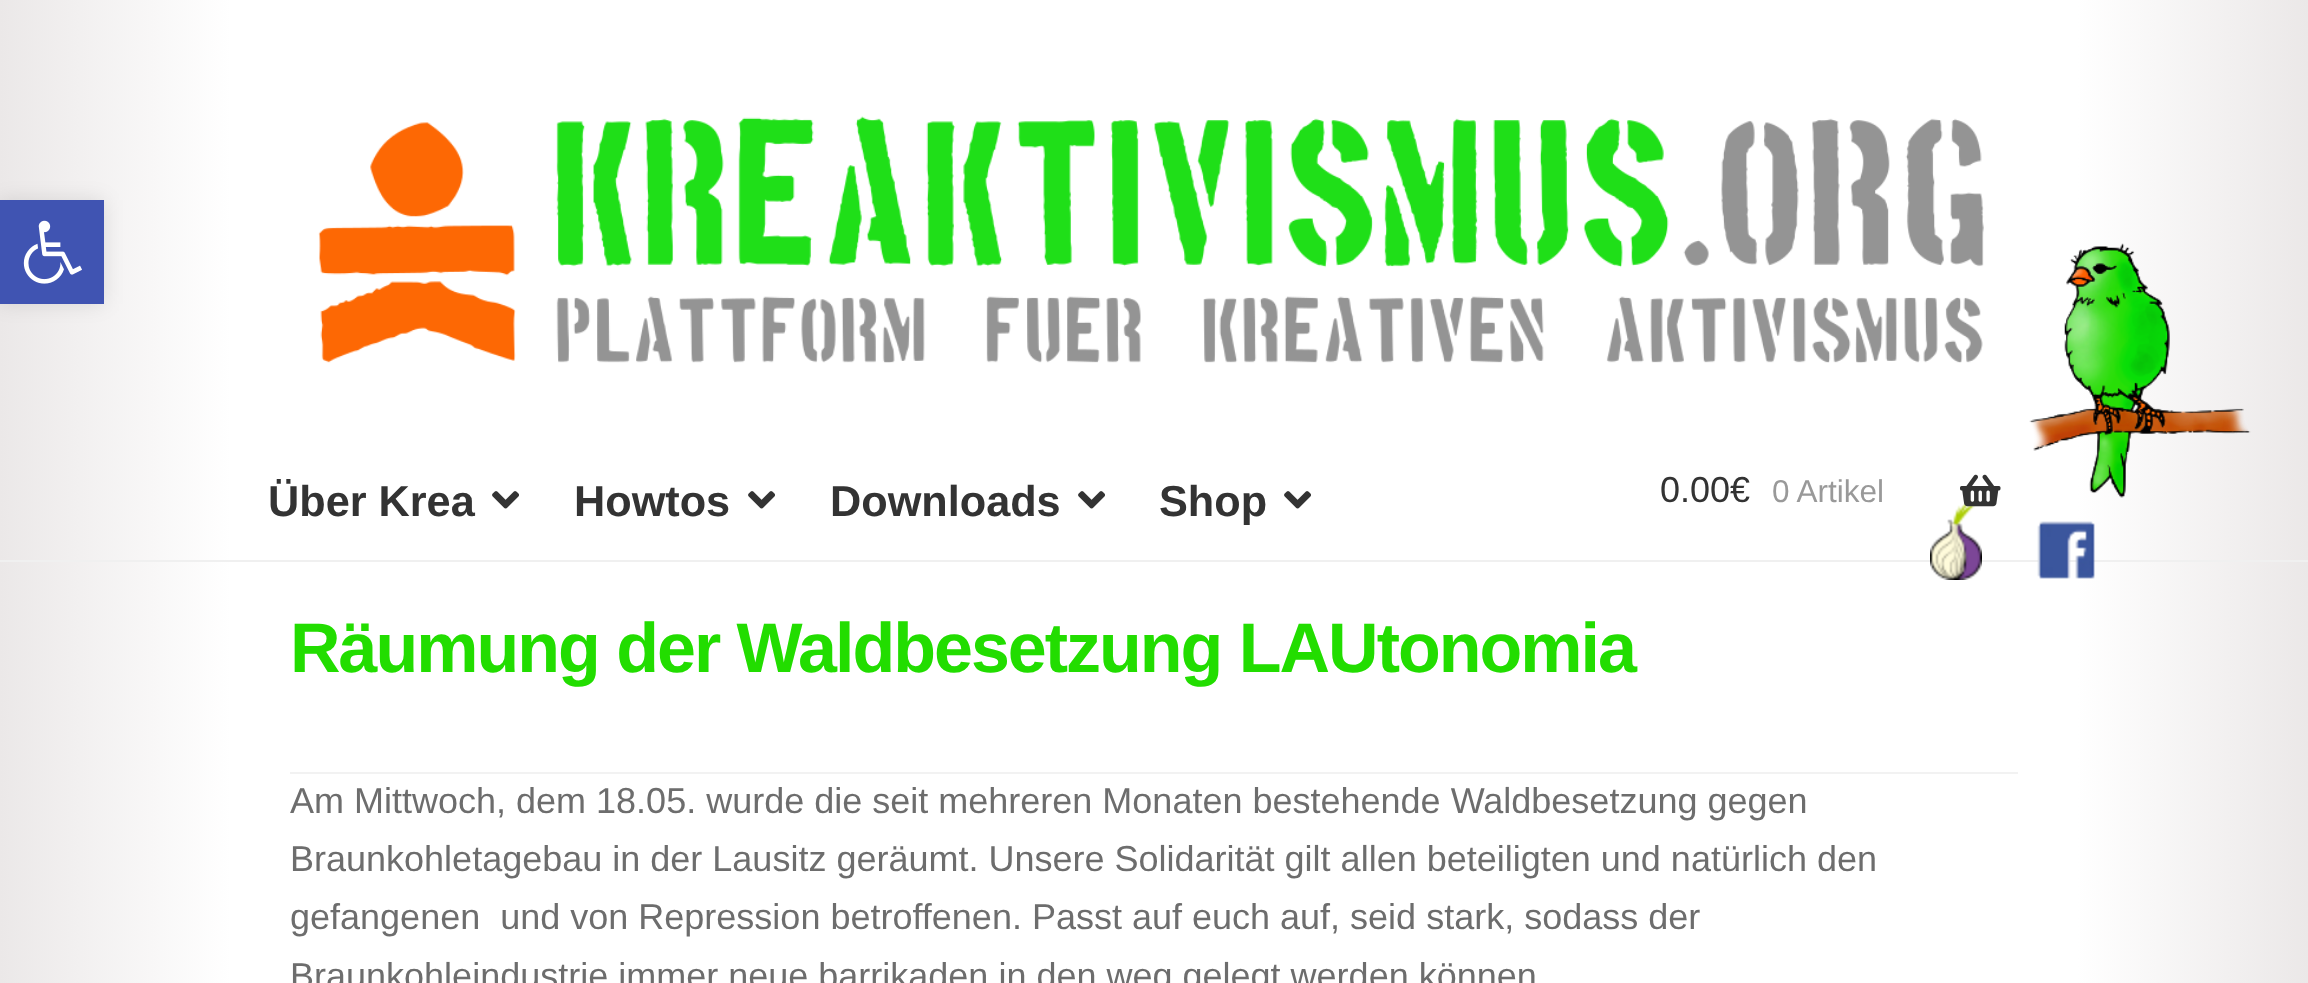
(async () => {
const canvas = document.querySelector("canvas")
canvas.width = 2308
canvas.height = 983
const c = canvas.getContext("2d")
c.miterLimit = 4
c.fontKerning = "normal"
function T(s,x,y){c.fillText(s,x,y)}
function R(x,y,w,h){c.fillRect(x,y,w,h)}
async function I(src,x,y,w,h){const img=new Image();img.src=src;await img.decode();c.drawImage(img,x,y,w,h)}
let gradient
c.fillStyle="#fff"
R(0,0,2308,983)
gradient = c.createLinearGradient(0,280,2308,280)
gradient.addColorStop(0,"#ebe8e8")
gradient.addColorStop(.1,"#fff")
gradient.addColorStop(.9,"#fff")
gradient.addColorStop(1,"#ebe8e8")
c.fillStyle = gradient
R(0,0,2308,560)
c.fillStyle="#0000001a"
c.filter="blur(10px)"
c.beginPath()
c.rect(0,200,104,104)
c.fill()
c.filter="none"
c.fillStyle="#4054b2"
R(0,200,104,104)
await I("1.png",23,220,59,64)
c.fillStyle="#f0f0f0"
R(0,560,2308,2)
await I("2.png",318,116,1666,247)
await I("3.png",2029,243,222,255)
gradient = c.createLinearGradient(0,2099,2308,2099)
gradient.addColorStop(0,"#ebe8e8")
gradient.addColorStop(.1,"#fff")
gradient.addColorStop(.9,"#fff")
gradient.addColorStop(1,"#ebe8e8")
c.fillStyle = gradient
R(0,562,2308,421)
await I("4.png",1930,500,52,80)
await I("5.png",2037,521,58,58)
c.font="bold 43.25px Liberation Sans"
c.fillStyle="#333"
T("Über Krea",268,516)
await I("6.png",492,491,27,18)
T("Howtos",574,516)
await I("6.png",748,491,27,18)
T("Downloads",830,516)
await I("6.png",1078,491,27,18)
T("Shop",1159,516)
await I("6.png",1284,491,27,18)
c.font="36px Liberation Sans"
T("0.00€",1660,502)
c.font="31.5px Liberation Sans"
c.fillStyle="#999"
T("0 Artikel",1772,502)
await I("7.png",1960,474,41,33)
c.fillStyle="#f2f2f2"
R(290,772,1728,2)
c.letterSpacing="-2px"
c.font="bold 70px Liberation Sans"
c.fillStyle="#2d0"
T("Räumung der Waldbesetzung LAUtonomia",290,672)
c.letterSpacing="0px"
c.font="36px Liberation Sans"
c.fillStyle="#6d6d6d"
T("Am Mittwoch, dem 18.05. wurde die seit mehreren Monaten bestehende Waldbesetzung gegen",290,813)
T("Braunkohletagebau in der Lausitz geräumt. Unsere Solidarität gilt allen beteiligten und natürlich den",290,871)
T("gefangenen  und von Repression betroffenen. Passt auf euch auf, seid stark, sodass der",290,929)
T("Braunkohleindustrie immer neue barrikaden in den weg gelegt werden können",290,988)
})()
